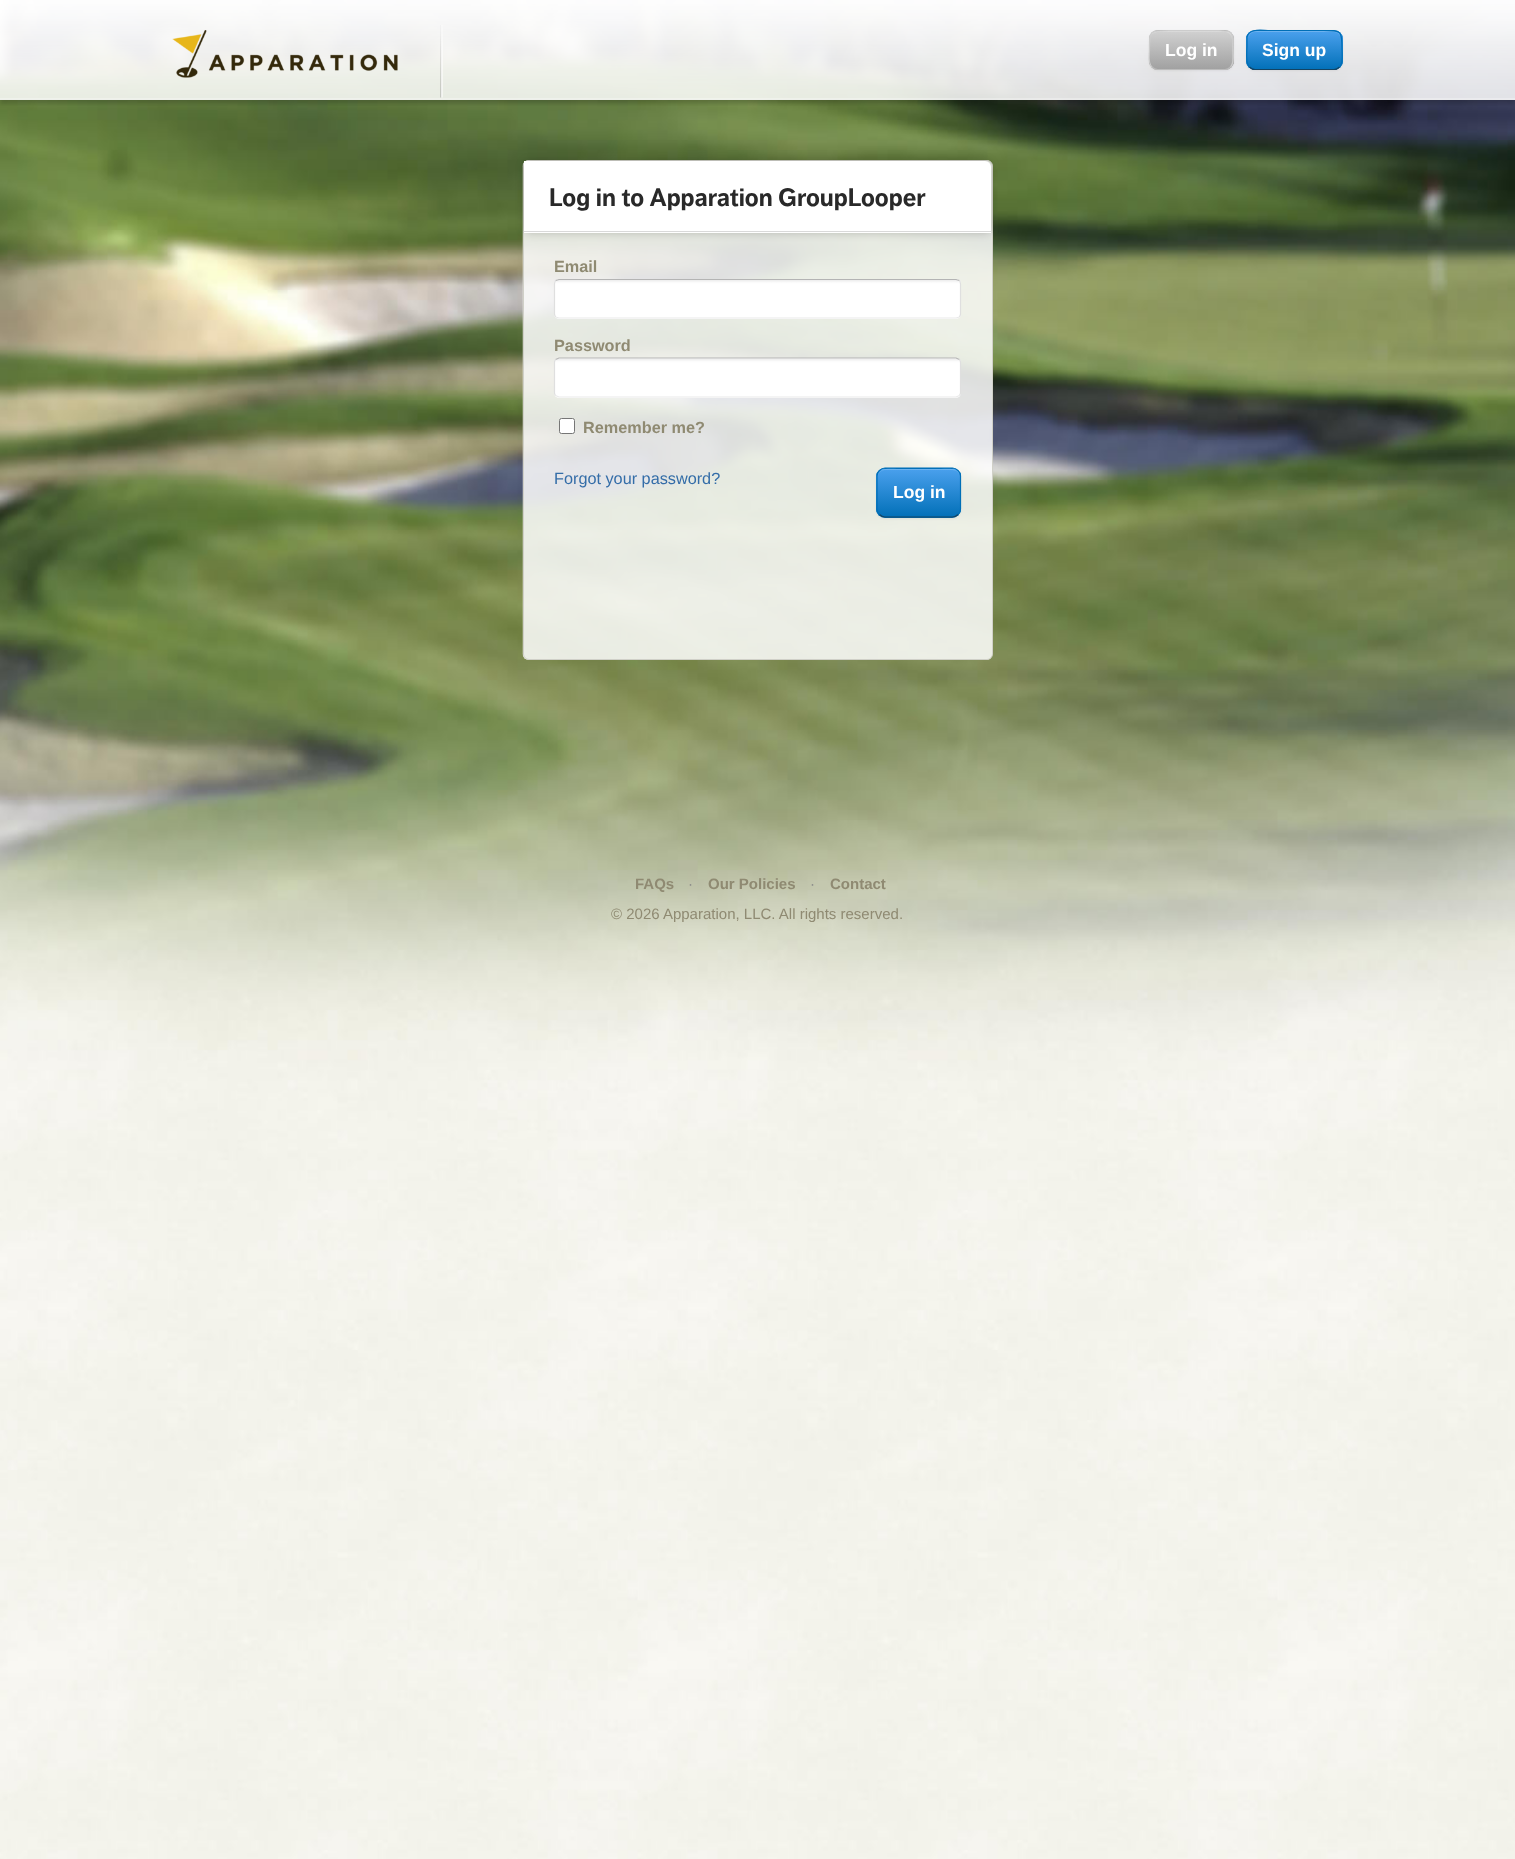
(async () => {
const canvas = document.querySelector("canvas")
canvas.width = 1515
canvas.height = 1859
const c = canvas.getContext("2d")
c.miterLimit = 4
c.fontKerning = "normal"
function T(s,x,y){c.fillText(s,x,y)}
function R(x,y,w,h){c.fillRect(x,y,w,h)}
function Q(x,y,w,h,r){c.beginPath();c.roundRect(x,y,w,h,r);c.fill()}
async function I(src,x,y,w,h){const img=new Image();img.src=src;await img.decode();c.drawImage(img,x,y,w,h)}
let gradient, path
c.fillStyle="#fff"
R(0,0,1515,1859)
await I("1.png",0,0,1515,1859)
c.save()
c.beginPath()
c.rect(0,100,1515,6)
c.clip()
c.fillStyle="#00000033"
c.filter="blur(2px)"
c.beginPath()
c.rect(0,3,1515,100)
c.fill()
c.filter="none"
c.restore()
await I("2.png",0,0,1515,100)
await I("3.png",440,25,3,73)
await I("4.png",172,30,226,48)
c.fillStyle="#0000000d"
c.filter="blur(1px)"
c.beginPath()
c.roundRect(1149,31,85,40,9)
c.fill()
c.filter="none"
c.fillStyle="#a1a1a1"
Q(1149,30,85,40,9)
c.save()
c.beginPath()
c.roundRect(1149,30,85,40,9)
c.clip()
gradient = c.createLinearGradient(1191,31,1191,69)
gradient.addColorStop(0,"#d1d1d1")
gradient.addColorStop(1,"#a1a1a1")
c.fillStyle = gradient
R(1149,31,85,38)
c.restore()
c.fillStyle="#ffffff33"
path = new Path2D("M1158 32h67c4 0 7 4 7 8v22l-1 4c3-4 2-11 2-16c0-19 1-19-19-19h-45c-8 0-19-2-19 9c0-4 3-8 8-8z")
c.fill(path)
path = new Path2D("M1230.5 67c-1.5 1.5-3.5 2.5-5.5 2.5h-67.5c-2 0-4-1-5.5-2.5")
c.strokeStyle="#bbb"
c.lineWidth=1.2
c.stroke(path)
path = new Path2D("M1152 67c-4.5-4-2.5-12-2.5-17c0-19.5-.5-19.5 19.5-19.5h45c17 0 19-1.5 19 15.5c0 5.5 2 17-2.5 21")
c.strokeStyle="#ccc"
c.stroke(path)
c.font="bold 17.5px Liberation Sans"
c.fillStyle="#fff"
T("Log in",1165,56)
c.fillStyle="#0000000d"
c.filter="blur(1px)"
c.beginPath()
c.roundRect(1246,31,97,40,9)
c.fill()
c.filter="none"
c.fillStyle="#0371b9"
Q(1246,30,97,40,9)
c.save()
c.beginPath()
c.roundRect(1246,30,97,40,9)
c.clip()
gradient = c.createLinearGradient(1294,31,1294,69)
gradient.addColorStop(0,"#4aa0ed")
gradient.addColorStop(1,"#0371b9")
c.fillStyle = gradient
R(1246,31,97,38)
c.restore()
c.fillStyle="#ffffff33"
path = new Path2D("M1255 32h79c4 0 7 4 7 8c0-12-13-9-21-9h-51c-8 0-21-3-21 9c0-4 3-8 7-8z")
c.fill(path)
path = new Path2D("M1339.5 67c-1.5 1.5-3.5 2.5-5.5 2.5h-79c-2 0-4-1-5.5-2.5")
c.strokeStyle="#134464"
c.stroke(path)
path = new Path2D("M1249.5 67c-4.5-4-2.5-15.5-2.5-20.5v-9.5c2-9 15-6.5 21-6.5h52.5c21.5 0 21.5-1 21.5 19.5c0 5 1.5 13-2.5 17")
c.strokeStyle="#006fb7"
c.stroke(path)
c.fillStyle="#fff"
T("Sign up",1262,56)
await I("5.png",522,160,471,500)
c.beginPath()
c.roundRect(523.5,160.5,469,499,5.5)
c.strokeStyle="#d0d0c8"
c.lineWidth=1
c.stroke()
c.fillStyle="#00000033"
c.filter="blur(4.5px)"
c.beginPath()
c.roundRect(524,161,467,72,6)
c.fill()
c.filter="none"
c.fillStyle="#fff"
c.beginPath()
c.roundRect(524,161,467,72,[0,6,0,0])
c.fill()
c.fillStyle="#d9d9d9"
R(524,231,467,1)
c.font="bold 25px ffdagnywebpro"
c.fillStyle="#292929"
T("Log in to Apparation GroupLooper",549,206)
c.font="bold 16.25px Liberation Sans"
c.fillStyle="#8f8a72"
T("Email",554,272)
c.fillStyle="#fff"
Q(554,279,407,40,5)
await I("6.png",554,280,407,37)
path = new Path2D("M555.5 280.5l3.5-1h397l3.5 1")
c.strokeStyle="#b4b4b4"
c.lineWidth=1.2
c.stroke(path)
path = new Path2D("M959.5 280.5c.5 1 1 2 1 3.5v30c0 1-.5 2-1 3")
c.strokeStyle="#dfdfdf"
c.stroke(path)
path = new Path2D("M959.5 317l-3.5 1h-397l-3.5-1")
c.strokeStyle="#e9e9e9"
c.stroke(path)
path = new Path2D("M555.5 317c-.5-1-1-2-1-3v-30c0-1.5 .5-2.5 1-3.5")
c.strokeStyle="#dfdfdf"
c.stroke(path)
c.fillStyle="#8f8a72"
T("Password",554,351)
c.fillStyle="#fff"
Q(554,358,407,40,5)
await I("7.png",554,358,407,37)
path = new Path2D("M555.5 359.5l3.5-1.5h397l3.5 1.5")
c.strokeStyle="#b4b4b4"
c.stroke(path)
path = new Path2D("M959.5 359.5c.5 .5 1 2 1 3v30c0 1-.5 2.5-1 3")
c.strokeStyle="#dfdfdf"
c.stroke(path)
path = new Path2D("M959.5 395.5l-3.5 1.5h-397l-3.5-1.5")
c.strokeStyle="#e9e9e9"
c.stroke(path)
path = new Path2D("M555.5 395.5c-.5-.5-1-2-1-3v-30c0-1 .5-2.5 1-3")
c.strokeStyle="#dfdfdf"
c.stroke(path)
c.beginPath()
c.roundRect(559.5,418.5,15,15,2)
c.fill()
c.strokeStyle="#767676"
c.lineWidth=1
c.stroke()
c.fillStyle="#8f8a72"
T("Remember me?",583,433)
c.font="16.25px Liberation Sans"
c.fillStyle="#346da8"
T("Forgot your password?",554,484)
c.fillStyle="#0000000d"
c.filter="blur(1px)"
c.beginPath()
c.roundRect(876,469,85,50,9)
c.fill()
c.filter="none"
c.fillStyle="#0371b9"
Q(876,468,85,50,9)
c.save()
c.beginPath()
c.roundRect(876,468,85,50,9)
c.clip()
gradient = c.createLinearGradient(919,469,919,516)
gradient.addColorStop(0,"#4aa0ed")
gradient.addColorStop(1,"#0371b9")
c.fillStyle = gradient
R(876,469,85,47)
c.restore()
c.fillStyle="#6db3f0"
path = new Path2D("M885 470h67c5 0 8 3 8 8c0-11-11-9-19-9h-44c-8 0-19-2-19 9c0-5 3-8 7-8z")
c.fill(path)
path = new Path2D("M958 514.5c-1.5 1.5-3.5 2.5-5.5 2.5h-67.5c-2 0-4-1-5.5-2.5")
c.strokeStyle="#134464"
c.lineWidth=1.2
c.stroke(path)
path = new Path2D("M879.5 514.5c-2-1.5-2.5-3.5-2.5-5.5v-33c0-2 .5-4 2.5-5.5c1.5-1.5 3.5-2.5 5.5-2.5h67.5c2 0 4 1 5.5 2.5c2 1.5 2.5 3.5 2.5 5.5v33c0 2-.5 4-2.5 5.5")
c.strokeStyle="#006fb7"
c.stroke(path)
c.font="bold 17.5px Liberation Sans"
c.fillStyle="#fff"
T("Log in",893,498)
c.font="bold 15px Liberation Sans"
c.fillStyle="#8f8a72"
T("FAQs",635,889)
c.font="15px Liberation Sans"
c.fillStyle="#898989"
T("·",688,889)
c.font="bold 15px Liberation Sans"
c.fillStyle="#8f8a72"
T("Our Policies",708,889)
c.font="15px Liberation Sans"
c.fillStyle="#898989"
T("·",810,889)
c.font="bold 15px Liberation Sans"
c.fillStyle="#8f8a72"
T("Contact",830,889)
c.font="15px Liberation Sans"
T("© 2026 Apparation, LLC. All rights reserved.",611,919)
})()
